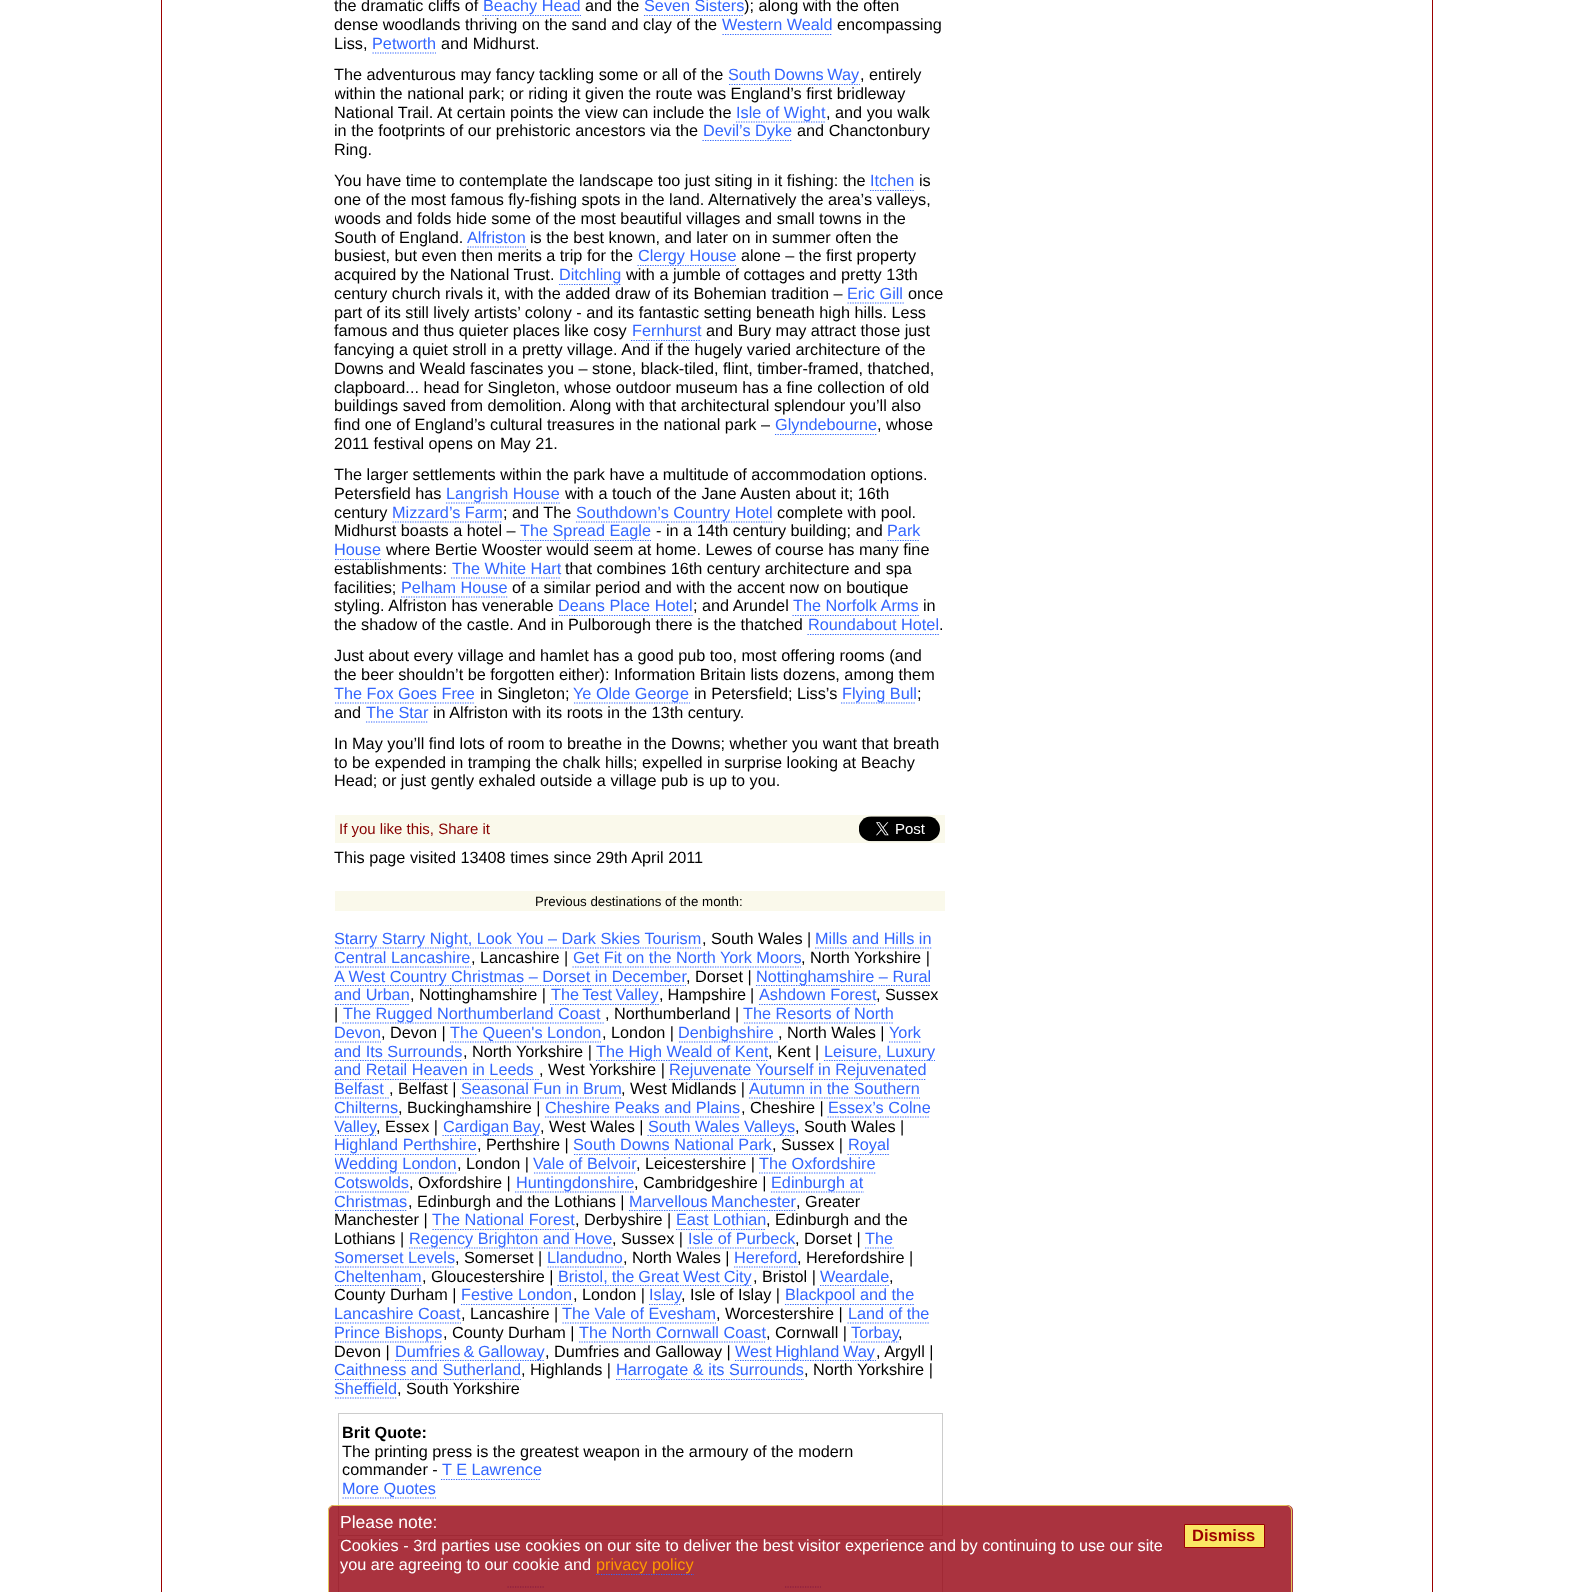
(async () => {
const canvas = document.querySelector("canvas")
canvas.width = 1592
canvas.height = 1592
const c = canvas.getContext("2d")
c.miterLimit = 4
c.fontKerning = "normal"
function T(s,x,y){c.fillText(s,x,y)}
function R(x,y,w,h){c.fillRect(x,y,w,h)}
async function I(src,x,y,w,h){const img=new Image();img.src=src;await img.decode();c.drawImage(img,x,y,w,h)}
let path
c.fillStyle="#fff"
R(0,0,1592,1592)
c.strokeStyle="#9c0000"
c.strokeRect(161.5,-.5,1271,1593)
c.font="16.25px Liberation Sans"
c.fillStyle="#000"
T("the dramatic cliffs of",334,11)
path = new Path2D("M482.5 15.5h98.5")
c.strokeStyle="#36f"
c.lineWidth=1.2
c.setLineDash([1.25,1.25])
c.stroke(path)
c.fillStyle="#36f"
T("Beachy Head",483,11)
c.fillStyle="#000"
T("and the",585,11)
c.fillStyle="#36f"
T("Seven Sisters",644,11)
path = new Path2D("M644 15.5h100")
c.stroke(path)
c.fillStyle="#000"
T("); along with the often",744,11)
T("dense woodlands thriving on the sand and clay of the",334,30)
c.fillStyle="#36f"
T("Western Weald",722,30)
path = new Path2D("M722.5 34.5h110")
c.stroke(path)
c.fillStyle="#000"
T("encompassing",837,30)
T("Liss,",334,49)
c.fillStyle="#36f"
T("Petworth",372,49)
path = new Path2D("M372.5 53h63.5")
c.stroke(path)
c.fillStyle="#000"
T("and Midhurst.",441,49)
T("The adventurous may fancy tackling some or all of the",334,80)
path = new Path2D("M729 84.5h131")
c.stroke(path)
c.wordSpacing="-1px"
c.fillStyle="#36f"
T("South Downs Way",728,80)
c.wordSpacing="0px"
c.fillStyle="#000"
T(", entirely",860,80)
c.save()
c.beginPath()
c.rect(335,0,610,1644)
c.clip()
T("within the national park; or riding it given the route was England’s first bridleway",334,99)
c.restore()
T("National Trail. At certain points the view can include the",334,118)
path = new Path2D("M736 122h90")
c.stroke(path)
c.fillStyle="#36f"
T("Isle of Wight",736,118)
c.fillStyle="#000"
T(", and you walk",826,118)
T("in the footprints of our prehistoric ancestors via the",334,136)
path = new Path2D("M702.5 140.5h90")
c.stroke(path)
c.fillStyle="#36f"
T("Devil’s Dyke",703,136)
c.fillStyle="#000"
T("and Chanctonbury",797,136)
T("Ring.",334,155)
T("You have time to contemplate the landscape too just siting in it fishing: the",334,186)
c.fillStyle="#36f"
T("Itchen",870,186)
path = new Path2D("M870 190.5h45")
c.stroke(path)
c.fillStyle="#000"
T("is",919,186)
T("one of the most famous fly-fishing spots in the land. Alternatively the area’s valleys,",334,205)
c.save()
c.beginPath()
c.rect(335,0,610,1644)
c.clip()
T("woods and folds hide some of the most beautiful villages and small towns in the",334,224)
c.restore()
T("South of England.",334,243)
c.fillStyle="#36f"
T("Alfriston",467,243)
path = new Path2D("M467.5 247h58.5")
c.stroke(path)
c.fillStyle="#000"
T("is the best known, and later on in summer often the",530,243)
T("busiest, but even then merits a trip for the",334,261)
path = new Path2D("M637.5 265.5h98.5")
c.stroke(path)
c.fillStyle="#36f"
T("Clergy House",638,261)
c.fillStyle="#000"
T("alone – the first property",741,261)
T("acquired by the National Trust.",334,280)
path = new Path2D("M559 284.5h62")
c.stroke(path)
c.fillStyle="#36f"
T("Ditchling",559,280)
c.fillStyle="#000"
T("with a jumble of cottages and pretty 13th",626,280)
T("century church rivals it, with the added draw of its Bohemian tradition –",334,299)
c.fillStyle="#36f"
T("Eric Gill",847,299)
path = new Path2D("M847.5 303h56.5")
c.stroke(path)
c.fillStyle="#000"
T("once",908,299)
T("part of its still lively artists’ colony - and its fantastic setting beneath high hills. Less",334,318)
T("famous and thus quieter places like cosy",334,336)
c.fillStyle="#36f"
T("Fernhurst",632,336)
path = new Path2D("M631 340.5h70")
c.stroke(path)
c.fillStyle="#000"
T("and Bury may attract those just",706,336)
T("fancying a quiet stroll in a pretty village. And if the hugely varied architecture of the",334,355)
T("Downs and Weald fascinates you – stone, black-tiled, flint, timber-framed, thatched,",334,374)
T("clapboard... head for Singleton, whose outdoor museum has a fine collection of old",334,393)
T("buildings saved from demolition. Along with that architectural splendour you’ll also",334,411)
T("find one of England’s cultural treasures in the national park –",334,430)
path = new Path2D("M775 434.5h102.5")
c.stroke(path)
c.fillStyle="#36f"
T("Glyndebourne",775,430)
c.fillStyle="#000"
T(", whose",877,430)
T("2011 festival opens on May 21.",334,449)
T("The larger settlements within the park have a multitude of accommodation options.",334,480)
T("Petersfield has",334,499)
path = new Path2D("M446 503h114")
c.stroke(path)
c.fillStyle="#36f"
T("Langrish House",446,499)
c.fillStyle="#000"
T("with a touch of the Jane Austen about it; 16th",565,499)
T("century",334,518)
c.fillStyle="#36f"
T("Mizzard’s Farm",392,518)
path = new Path2D("M392.5 522h110")
c.stroke(path)
c.fillStyle="#000"
T("; and The",503,518)
path = new Path2D("M576 522h196.5")
c.stroke(path)
c.fillStyle="#36f"
T("Southdown’s Country Hotel",576,518)
c.fillStyle="#000"
T("complete with pool.",777,518)
T("Midhurst boasts a hotel –",334,536)
path = new Path2D("M520 540.5h131")
c.stroke(path)
c.fillStyle="#36f"
T("The Spread Eagle",520,536)
c.fillStyle="#000"
T("- in a 14th century building; and",656,536)
c.fillStyle="#36f"
T("Park",887,536)
path = new Path2D("M887.5 540.5h32.5")
c.stroke(path)
T("House",334,555)
path = new Path2D("M335 559.5h46")
c.stroke(path)
c.fillStyle="#000"
T("where Bertie Wooster would seem at home. Lewes of course has many fine",386,555)
T("establishments:",334,574)
c.fillStyle="#36f"
T("The White Hart",452,574)
path = new Path2D("M451 578h110")
c.stroke(path)
c.fillStyle="#000"
T("that combines 16th century architecture and spa",565,574)
T("facilities;",334,593)
c.fillStyle="#36f"
T("Pelham House",401,593)
path = new Path2D("M401 597h106.5")
c.stroke(path)
c.fillStyle="#000"
T("of a similar period and with the accent now on boutique",512,593)
T("styling. Alfriston has venerable",334,611)
c.fillStyle="#36f"
T("Deans Place Hotel",558,611)
path = new Path2D("M559 615.5h133.5")
c.stroke(path)
c.fillStyle="#000"
T("; and Arundel",693,611)
c.fillStyle="#36f"
T("The Norfolk Arms",793,611)
path = new Path2D("M792.5 615.5h126.5")
c.stroke(path)
c.fillStyle="#000"
T("in",923,611)
T("the shadow of the castle. And in Pulborough there is the thatched",334,630)
c.fillStyle="#36f"
T("Roundabout Hotel",808,630)
path = new Path2D("M807.5 634.5h131.5")
c.stroke(path)
c.fillStyle="#000"
T(".",939,630)
T("Just about every village and hamlet has a good pub too, most offering rooms (and",334,661)
T("the beer shouldn’t be forgotten either): Information Britain lists dozens, among them",334,680)
c.fillStyle="#36f"
T("The Fox Goes Free",334,699)
path = new Path2D("M335 703h140")
c.stroke(path)
c.fillStyle="#000"
T("in Singleton;",480,699)
path = new Path2D("M574 703h116")
c.stroke(path)
c.fillStyle="#36f"
T("Ye Olde George",573,699)
c.fillStyle="#000"
T("in Petersfield; Liss’s",694,699)
path = new Path2D("M841 703h75")
c.stroke(path)
c.fillStyle="#36f"
T("Flying Bull",842,699)
c.fillStyle="#000"
T(";",917,699)
T("and",334,718)
c.fillStyle="#36f"
T("The Star",366,718)
path = new Path2D("M366 722h61.5")
c.stroke(path)
c.fillStyle="#000"
T("in Alfriston with its roots in the 13th century.",433,718)
T("In May you’ll find lots of room to breathe in the Downs; whether you want that breath",334,749)
T("to be expended in tramping the chalk hills; expelled in surprise looking at Beachy",334,768)
T("Head; or just gently exhaled outside a village pub is up to you.",334,786)
c.fillStyle="#faf9eb"
R(335,815,610,28)
c.font="15px Liberation Sans"
c.fillStyle="#870000"
T("If you like this, Share it",339,834)
await I("1.png",859,816,81,26)
c.font="16.25px Liberation Sans"
c.fillStyle="#000"
T("This page visited 13408 times since 29th April 2011",334,863)
c.fillStyle="#faf9eb"
R(335,891,610,20)
c.font="13.3px Liberation Sans"
c.fillStyle="#000"
T("Previous destinations of the month:",535,906)
path = new Path2D("M335 948h366")
c.stroke(path)
c.font="16.25px Liberation Sans"
c.fillStyle="#36f"
T("Starry Starry Night, Look You – Dark Skies Tourism",334,944)
c.fillStyle="#000"
T(", South Wales |",702,944)
c.fillStyle="#36f"
T("Mills and Hills in",815,944)
path = new Path2D("M815 948h117.5")
c.stroke(path)
T("Central Lancashire",334,963)
path = new Path2D("M335 967h136")
c.stroke(path)
c.fillStyle="#000"
T(", Lancashire |",471,963)
c.fillStyle="#36f"
T("Get Fit on the North York Moors",573,963)
path = new Path2D("M572.5 967h228.5")
c.stroke(path)
c.fillStyle="#000"
T(", North Yorkshire |",801,963)
path = new Path2D("M335 985.5h351")
c.stroke(path)
c.fillStyle="#36f"
T("A West Country Christmas – Dorset in December",334,982)
c.fillStyle="#000"
T(", Dorset |",686,982)
path = new Path2D("M756 985.5h175")
c.stroke(path)
c.fillStyle="#36f"
T("Nottinghamshire – Rural",756,982)
T("and Urban",334,1000)
path = new Path2D("M335 1004.5h75")
c.stroke(path)
c.fillStyle="#000"
T(", Nottinghamshire |",410,1000)
path = new Path2D("M550 1004.5h109")
c.stroke(path)
c.wordSpacing="-1px"
c.fillStyle="#36f"
T("The Test Valley",551,1000)
c.wordSpacing="-0.5px"
c.fillStyle="#000"
T(", Hampshire |",659,1000)
c.wordSpacing="0px"
c.fillStyle="#36f"
T("Ashdown Forest",759,1000)
path = new Path2D("M759 1004.5h117")
c.stroke(path)
c.fillStyle="#000"
T(", Sussex",876,1000)
T("|",334,1019)
path = new Path2D("M342.5 1023h262.5")
c.stroke(path)
c.fillStyle="#36f"
T("The Rugged Northumberland Coast",343,1019)
c.fillStyle="#000"
T(", Northumberland |",605,1019)
c.fillStyle="#36f"
T("The Resorts of North",743,1019)
path = new Path2D("M744 1023h150")
c.stroke(path)
T("Devon",334,1038)
path = new Path2D("M335 1042h46")
c.stroke(path)
c.fillStyle="#000"
T(", Devon |",381,1038)
path = new Path2D("M450 1042h151")
c.stroke(path)
c.fillStyle="#36f"
T("The Queen's London",450,1038)
c.fillStyle="#000"
T(", London |",602,1038)
path = new Path2D("M679 1042h100")
c.stroke(path)
c.fillStyle="#36f"
T("Denbighshire",678,1038)
c.fillStyle="#000"
T(", North Wales |",778,1038)
c.fillStyle="#36f"
T("York",889,1038)
path = new Path2D("M889 1042h32")
c.stroke(path)
T("and Its Surrounds",334,1057)
path = new Path2D("M335 1060.5h127.5")
c.stroke(path)
c.fillStyle="#000"
T(", North Yorkshire |",463,1057)
path = new Path2D("M596 1060.5h171.5")
c.stroke(path)
c.fillStyle="#36f"
T("The High Weald of Kent",596,1057)
c.fillStyle="#000"
T(", Kent |",768,1057)
path = new Path2D("M824 1060.5h111")
c.stroke(path)
c.fillStyle="#36f"
T("Leisure, Luxury",824,1057)
T("and Retail Heaven in Leeds",334,1075)
path = new Path2D("M335 1079.5h204")
c.stroke(path)
c.fillStyle="#000"
T(", West Yorkshire |",539,1075)
path = new Path2D("M669 1079.5h257")
c.stroke(path)
c.fillStyle="#36f"
T("Rejuvenate Yourself in Rejuvenated",669,1075)
T("Belfast",334,1094)
path = new Path2D("M335 1098h54")
c.stroke(path)
c.fillStyle="#000"
T(", Belfast |",389,1094)
c.fillStyle="#36f"
T("Seasonal Fun in Brum",461,1094)
path = new Path2D("M460 1098h161")
c.stroke(path)
c.fillStyle="#000"
T(", West Midlands |",621,1094)
c.fillStyle="#36f"
T("Autumn in the Southern",749,1094)
path = new Path2D("M749 1098h171")
c.stroke(path)
T("Chilterns",334,1113)
path = new Path2D("M335 1117h64")
c.stroke(path)
c.fillStyle="#000"
T(", Buckinghamshire |",398,1113)
c.fillStyle="#36f"
T("Cheshire Peaks and Plains",545,1113)
path = new Path2D("M545 1117h195")
c.stroke(path)
c.fillStyle="#000"
T(", Cheshire |",741,1113)
c.fillStyle="#36f"
T("Essex’s Colne",828,1113)
path = new Path2D("M827.5 1117h102.5")
c.stroke(path)
path = new Path2D("M335 1135.5h41")
c.stroke(path)
T("Valley",334,1132)
c.fillStyle="#000"
T(", Essex |",376,1132)
path = new Path2D("M442.5 1135.5h97.5")
c.stroke(path)
c.wordSpacing="-1px"
c.fillStyle="#36f"
T("Cardigan Bay",443,1132)
c.wordSpacing="0px"
c.fillStyle="#000"
T(", West Wales |",540,1132)
path = new Path2D("M647.5 1135.5h147.5")
c.stroke(path)
c.fillStyle="#36f"
T("South Wales Valleys",648,1132)
c.fillStyle="#000"
T(", South Wales |",795,1132)
path = new Path2D("M335 1154.5h142.5")
c.stroke(path)
c.fillStyle="#36f"
T("Highland Perthshire",334,1150)
c.fillStyle="#000"
T(", Perthshire |",477,1150)
c.fillStyle="#36f"
T("South Downs National Park",573,1150)
path = new Path2D("M574 1154.5h198.5")
c.stroke(path)
c.fillStyle="#000"
T(", Sussex |",772,1150)
path = new Path2D("M847.5 1154.5h41.5")
c.stroke(path)
c.fillStyle="#36f"
T("Royal",848,1150)
path = new Path2D("M335 1173h122.5")
c.stroke(path)
c.save()
c.beginPath()
c.rect(335,0,610,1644)
c.clip()
T("Wedding London",334,1169)
c.restore()
c.fillStyle="#000"
T(", London |",457,1169)
c.fillStyle="#36f"
T("Vale of Belvoir",533,1169)
path = new Path2D("M534 1173h102")
c.stroke(path)
c.fillStyle="#000"
T(", Leicestershire |",636,1169)
c.fillStyle="#36f"
T("The Oxfordshire",759,1169)
path = new Path2D("M759 1173h117")
c.stroke(path)
T("Cotswolds",334,1188)
path = new Path2D("M335 1192h74")
c.stroke(path)
c.fillStyle="#000"
T(", Oxfordshire |",409,1188)
path = new Path2D("M515 1192h119")
c.stroke(path)
c.fillStyle="#36f"
T("Huntingdonshire",516,1188)
c.fillStyle="#000"
T(", Cambridgeshire |",634,1188)
path = new Path2D("M771 1192h93")
c.stroke(path)
c.fillStyle="#36f"
T("Edinburgh at",771,1188)
T("Christmas",334,1207)
path = new Path2D("M335 1210.5h72.5")
c.stroke(path)
c.fillStyle="#000"
T(", Edinburgh and the Lothians |",408,1207)
c.wordSpacing="-1px"
c.fillStyle="#36f"
T("Marvellous Manchester",629,1207)
path = new Path2D("M629 1210.5h167")
c.stroke(path)
c.wordSpacing="0px"
c.fillStyle="#000"
T(", Greater",796,1207)
T("Manchester |",334,1225)
c.fillStyle="#36f"
T("The National Forest",432,1225)
path = new Path2D("M432.5 1229.5h142.5")
c.stroke(path)
c.fillStyle="#000"
T(", Derbyshire |",575,1225)
c.fillStyle="#36f"
T("East Lothian",676,1225)
path = new Path2D("M676 1229.5h90")
c.stroke(path)
c.fillStyle="#000"
T(", Edinburgh and the",766,1225)
T("Lothians |",334,1244)
path = new Path2D("M409 1248h203.5")
c.stroke(path)
c.fillStyle="#36f"
T("Regency Brighton and Hove",409,1244)
c.fillStyle="#000"
T(", Sussex |",612,1244)
c.fillStyle="#36f"
T("Isle of Purbeck",688,1244)
path = new Path2D("M687.5 1248h107.5")
c.stroke(path)
c.fillStyle="#000"
T(", Dorset |",795,1244)
c.fillStyle="#36f"
T("The",865,1244)
path = new Path2D("M865 1248h29")
c.stroke(path)
T("Somerset Levels",334,1263)
path = new Path2D("M335 1267h120")
c.stroke(path)
c.fillStyle="#000"
T(", Somerset |",455,1263)
c.fillStyle="#36f"
T("Llandudno",547,1263)
path = new Path2D("M547.5 1267h76.5")
c.stroke(path)
c.fillStyle="#000"
T(", North Wales |",623,1263)
c.fillStyle="#36f"
T("Hereford",734,1263)
path = new Path2D("M734 1267h63.5")
c.stroke(path)
c.fillStyle="#000"
T(", Herefordshire |",797,1263)
c.fillStyle="#36f"
T("Cheltenham",334,1282)
path = new Path2D("M335 1285.5h87.5")
c.stroke(path)
c.fillStyle="#000"
T(", Gloucestershire |",422,1282)
path = new Path2D("M557.5 1285.5h195")
c.stroke(path)
c.wordSpacing="-0.5px"
c.fillStyle="#36f"
T("Bristol, the Great West City",558,1282)
c.wordSpacing="0px"
c.fillStyle="#000"
T(", Bristol |",753,1282)
c.fillStyle="#36f"
T("Weardale",820,1282)
path = new Path2D("M820 1285.5h69")
c.stroke(path)
c.fillStyle="#000"
T(",",889,1282)
T("County Durham |",334,1300)
c.fillStyle="#36f"
T("Festive London",461,1300)
path = new Path2D("M461 1304.5h111.5")
c.stroke(path)
c.fillStyle="#000"
T(", London |",573,1300)
path = new Path2D("M649 1304.5h32")
c.stroke(path)
c.fillStyle="#36f"
T("Islay",649,1300)
c.fillStyle="#000"
T(", Isle of Islay |",681,1300)
path = new Path2D("M785 1304.5h129")
c.stroke(path)
c.fillStyle="#36f"
T("Blackpool and the",785,1300)
T("Lancashire Coast",334,1319)
path = new Path2D("M335 1323h126")
c.stroke(path)
c.fillStyle="#000"
T(", Lancashire |",461,1319)
c.fillStyle="#36f"
T("The Vale of Evesham",562,1319)
path = new Path2D("M562.5 1323h153.5")
c.stroke(path)
c.fillStyle="#000"
T(", Worcestershire |",716,1319)
c.fillStyle="#36f"
T("Land of the",848,1319)
path = new Path2D("M847.5 1323h81.5")
c.stroke(path)
path = new Path2D("M335 1342h107.5")
c.stroke(path)
T("Prince Bishops",334,1338)
c.fillStyle="#000"
T(", County Durham |",443,1338)
c.fillStyle="#36f"
T("The North Cornwall Coast",579,1338)
path = new Path2D("M579 1342h186")
c.stroke(path)
c.fillStyle="#000"
T(", Cornwall |",766,1338)
path = new Path2D("M851 1342h48")
c.stroke(path)
c.fillStyle="#36f"
T("Torbay",851,1338)
c.fillStyle="#000"
T(",",898,1338)
T("Devon |",334,1357)
path = new Path2D("M395 1360.5h150")
c.stroke(path)
c.wordSpacing="-1px"
c.fillStyle="#36f"
T("Dumfries & Galloway",395,1357)
c.wordSpacing="0px"
c.fillStyle="#000"
T(", Dumfries and Galloway |",545,1357)
path = new Path2D("M735 1360.5h141")
c.stroke(path)
c.wordSpacing="-1px"
c.fillStyle="#36f"
T("West Highland Way",735,1357)
c.wordSpacing="0px"
c.fillStyle="#000"
T(", Argyll |",876,1357)
c.fillStyle="#36f"
T("Caithness and Sutherland",334,1375)
path = new Path2D("M335 1379.5h186")
c.stroke(path)
c.fillStyle="#000"
T(", Highlands |",521,1375)
path = new Path2D("M616 1379.5h188")
c.stroke(path)
c.fillStyle="#36f"
T("Harrogate & its Surrounds",616,1375)
c.fillStyle="#000"
T(", North Yorkshire |",804,1375)
c.fillStyle="#36f"
T("Sheffield",334,1394)
path = new Path2D("M335 1398h62.5")
c.stroke(path)
c.fillStyle="#000"
T(", South Yorkshire",397,1394)
c.strokeStyle="#ccc"
c.lineWidth=1
c.setLineDash([])
c.strokeRect(338.5,1413.5,604,122)
c.font="bold 16.25px Liberation Sans"
T("Brit Quote:",342,1438)
c.font="16.25px Liberation Sans"
T("The printing press is the greatest weapon in the armoury of the modern",342,1457)
T("commander -",342,1475)
c.fillStyle="#36f"
T("T E Lawrence",442,1475)
path = new Path2D("M441 1479.5h100")
c.strokeStyle="#36f"
c.lineWidth=1.2
c.setLineDash([1.25,1.25])
c.stroke(path)
path = new Path2D("M342.5 1498h93.5")
c.stroke(path)
T("More Quotes",342,1494)
c.strokeStyle="#ccc"
c.lineWidth=1
c.setLineDash([])
c.strokeRect(338.5,1539.5,604,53)
path = new Path2D("M507.5 1587h36.5")
c.strokeStyle="#36f"
c.lineWidth=1.2
c.setLineDash([1.25,1.25])
c.stroke(path)
path = new Path2D("M785 1587h36")
c.stroke(path)
c.fillStyle="#95000fcc"
path = new Path2D("M334 1505h953c3.5 0 6 2.5 6 6v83h-965v-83c0-3.5 2.5-6 6-6z")
c.fill(path)
c.fillStyle="#f4eb61cc"
path = new Path2D("M334 1505h952c4 0 6 3 6 6v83h-964v-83c0-3 2-6 6-6zm0 1h952c3 0 5 2 5 5v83h-962v-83c0-3 2-5 5-5z")
c.fill(path,"evenodd")
c.font="17.5px Liberation Sans"
c.fillStyle="#fff"
T("Please note:",340,1528)
c.fillStyle="#fae664"
c.beginPath()
c.rect(1184.5,1524.5,80,23)
c.fill()
c.strokeStyle="#9c0000"
c.lineWidth=1
c.setLineDash([])
c.stroke()
c.font="bold 16.5px Liberation Sans"
c.fillStyle="#9c0000"
T("Dismiss",1192,1541)
c.font="16.25px Liberation Sans"
c.fillStyle="#fff"
T("Cookies - 3rd parties use cookies on our site to deliver the best visitor experience and by continuing to use our site",340,1551)
T("you are agreeing to our cookie and",340,1570)
path = new Path2D("M596 1574.5h98")
c.strokeStyle="#36f"
c.lineWidth=1.2
c.setLineDash([1.25,1.25])
c.stroke(path)
c.fillStyle="#f90"
T("privacy policy",596,1570)
})()
